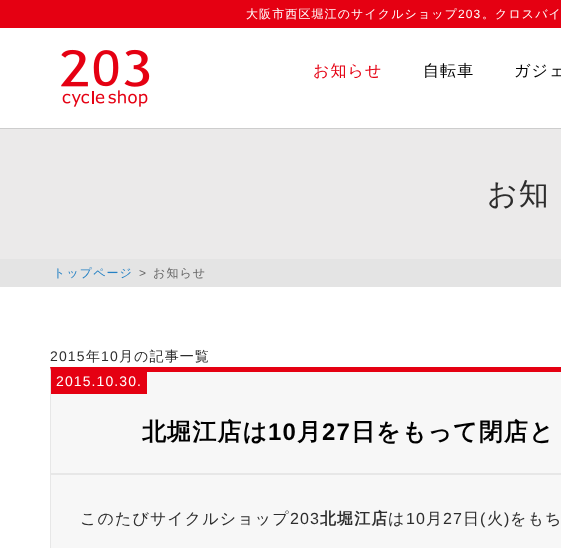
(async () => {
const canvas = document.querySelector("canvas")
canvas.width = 561
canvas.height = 548
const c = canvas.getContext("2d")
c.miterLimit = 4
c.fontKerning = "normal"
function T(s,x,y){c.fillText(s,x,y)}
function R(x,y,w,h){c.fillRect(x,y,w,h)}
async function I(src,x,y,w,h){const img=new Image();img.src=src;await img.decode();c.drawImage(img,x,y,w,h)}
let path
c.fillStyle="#fff"
R(0,0,561,548)
c.fillStyle="#cdcdcd"
R(0,128,561,1)
c.fillStyle="#e50012"
R(0,0,561,28)
c.letterSpacing="1.1px"
c.font="500 12px WenQuanYi Zen Hei"
c.fillStyle="#fff"
T("大阪市西区堀江のサイクルショップ",246,18)
c.font="12px Liberation Sans"
T("203",458,18)
c.font="500 12px WenQuanYi Zen Hei"
T("。クロスバイ",482,18)
await I("1.png",61,49,89,58)
c.font="500 16px WenQuanYi Zen Hei"
c.fillStyle="#e50012"
T("お知らせ",313,76)
c.fillStyle="#000"
T("自転車",423,76)
T("ガジェ",514,76)
c.fillStyle="#ebeaea"
R(0,129,561,130)
c.font="500 30px WenQuanYi Zen Hei"
c.fillStyle="#2d2d2d"
T("お知",487,204)
c.fillStyle="#e4e4e4"
R(0,259,561,28)
c.font="500 12px WenQuanYi Zen Hei"
c.fillStyle="#2581c4"
T("トップページ",53,277)
c.font="12px Liberation Sans"
c.fillStyle="#666"
T(">",139,277)
c.font="500 12px WenQuanYi Zen Hei"
T("お知らせ",153,277)
c.font="14px Liberation Sans"
c.fillStyle="#2d2d2d"
T("2015",50,361)
c.font="500 14px WenQuanYi Zen Hei"
T("年",86,361)
c.font="14px Liberation Sans"
T("10",101,361)
c.font="500 14px WenQuanYi Zen Hei"
T("月の記事一覧",119,361)
c.fillStyle="#f7f7f7"
R(50,367,511,181)
c.fillStyle="#e50012"
path = new Path2D("M50 367h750l-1 5h-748z")
c.fill(path)
c.fillStyle="#e7e7e7"
path = new Path2D("M50 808v-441l1 5v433z")
c.fill(path)
c.fillStyle="#e50012"
R(51,372,96,22)
c.font="14px Liberation Sans"
c.fillStyle="#fff"
T("2015.10.30.",56,386)
c.fillStyle="#e7e7e7"
R(51,473,510,2)
c.font="bold 24px WenQuanYi Zen Hei"
c.fillStyle="#000"
T("北堀江店は",142,440)
c.font="bold 24px Liberation Sans"
T("10",268,440)
c.font="bold 24px WenQuanYi Zen Hei"
T("月",297,440)
c.font="bold 24px Liberation Sans"
T("27",322,440)
c.font="bold 24px WenQuanYi Zen Hei"
T("日をもって閉店と",351,440)
c.font="500 16px WenQuanYi Zen Hei"
c.fillStyle="#2d2d2d"
T("このたびサイクルショップ",80,524)
c.font="16px Liberation Sans"
T("203",290,524)
c.font="bold 16px WenQuanYi Zen Hei"
T("北堀江店",320,524)
c.font="500 16px WenQuanYi Zen Hei"
T("は",388,524)
c.font="16px Liberation Sans"
T("10",406,524)
c.font="500 16px WenQuanYi Zen Hei"
T("月",426,524)
c.font="16px Liberation Sans"
T("27",443,524)
c.font="500 16px WenQuanYi Zen Hei"
T("日",463,524)
c.font="16px Liberation Sans"
T("(",480,524)
c.font="500 16px WenQuanYi Zen Hei"
T("火",487,524)
c.font="16px Liberation Sans"
T(")",504,524)
c.font="500 16px WenQuanYi Zen Hei"
T("をもち",510,524)
})()
